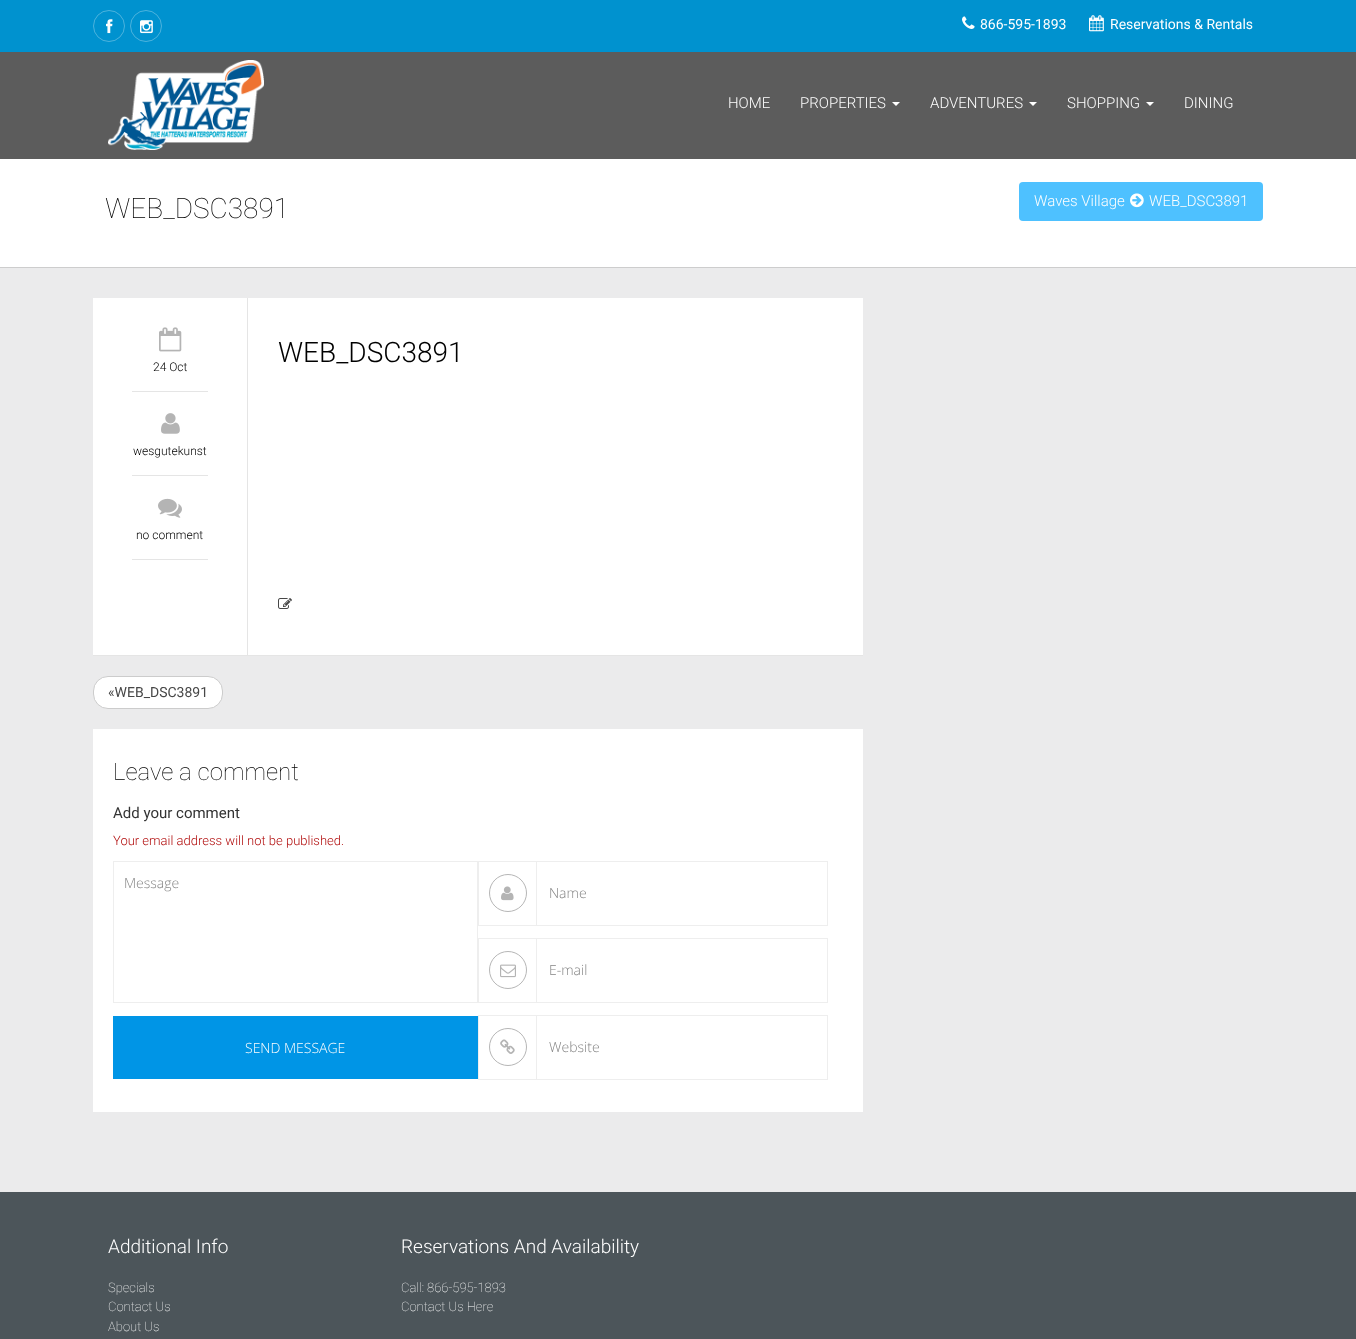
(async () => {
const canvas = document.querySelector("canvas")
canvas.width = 1356
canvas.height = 1339
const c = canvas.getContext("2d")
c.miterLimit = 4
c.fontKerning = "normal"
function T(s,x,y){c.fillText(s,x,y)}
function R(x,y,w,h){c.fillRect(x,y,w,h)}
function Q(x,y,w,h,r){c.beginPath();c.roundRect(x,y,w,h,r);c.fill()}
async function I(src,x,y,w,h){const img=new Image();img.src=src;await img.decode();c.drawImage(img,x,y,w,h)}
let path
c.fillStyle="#ebebec"
R(0,0,1356,1339)
c.fillStyle="#0092cf"
R(0,0,1356,52)
c.beginPath()
c.arc(109,26,15.5,0,7)
c.strokeStyle="#4db3dd"
c.stroke()
await I("1.png",106,19,7,15)
c.beginPath()
c.arc(146,26,15.5,0,7)
c.stroke()
await I("2.png",140,20,13,14)
await I("3.png",962,16,13,13)
c.font="14px Roboto"
c.fillStyle="#fefefe"
T("866-595-1893",980,29)
await I("4.png",1089,15,15,17)
T("Reservations & Rentals",1110,29)
c.fillStyle="#5c5c5c"
R(0,52,1356,107)
await I("5.png",108,60,156,90)
c.font="300 15px Roboto"
c.fillStyle="#fefefe"
T("HOME",728,108)
T("PROPERTIES",800,108)
c.fillStyle="#fff"
path = new Path2D("M892 102h8l-4 4z")
c.fill(path)
c.fillStyle="#fefefe"
T("ADVENTURES",930,108)
c.fillStyle="#fff"
path = new Path2D("M1029 102h8l-4 4z")
c.fill(path)
c.fillStyle="#fefefe"
T("SHOPPING",1067,108)
c.fillStyle="#fff"
path = new Path2D("M1146 102h8l-4 4z")
c.fill(path)
c.fillStyle="#fefefe"
T("DINING",1184,108)
c.fillStyle="#fff"
R(0,159,1356,108)
c.fillStyle="#cdcdcd"
R(0,267,1356,1)
c.font="100 28px Roboto"
c.fillStyle="#000"
T("WEB_DSC3891",105,218)
c.fillStyle="#4ec1ff"
Q(1019,182,244,39,4)
c.font="300 15px Roboto"
c.fillStyle="#fefefe"
T("Waves Village",1034,206)
await I("6.png",1130,193,14,15)
T("WEB_DSC3891",1149,206)
c.fillStyle="#fff"
R(93,298,770,357)
c.fillStyle="#e5e5e5"
R(93,655,770,1)
R(247,298,1,357)
c.font="300 28px Roboto"
c.fillStyle="#000"
T("WEB_DSC3891",278,362)
await I("7.png",278,598,14,11)
await I("8.png",159,327,23,25)
c.font="300 12px Roboto"
T("24 Oct",153,371)
c.fillStyle="#e5e5e5"
R(132,391,76,1)
await I("9.png",161,413,19,21)
c.fillStyle="#000"
T("wesgutekunst",133,455)
c.fillStyle="#e5e5e5"
R(132,475,76,1)
await I("10.png",158,498,24,20)
c.fillStyle="#000"
T("no comment",136,539)
c.fillStyle="#e5e5e5"
R(132,559,76,1)
c.fillStyle="#fff"
c.beginPath()
c.roundRect(93.5,676.5,129,32,14.5)
c.fill()
c.strokeStyle="#ccc"
c.stroke()
c.font="14px Roboto"
c.fillStyle="#474747"
T("«WEB_DSC3891",108,697)
c.fillStyle="#fff"
R(93,729,770,383)
c.font="100 24px Roboto"
c.fillStyle="#000"
T("Leave a comment",113,780)
c.font="15px Roboto"
c.fillStyle="#333"
T("Add your comment",113,818)
c.font="300 13px Roboto"
c.fillStyle="#b10c0c"
T("Your email address will not be published.",113,845)
c.strokeStyle="#eee"
c.strokeRect(113.5,861.5,364,141)
c.font="300 14px Open Sans"
c.fillStyle="#848484"
T("Message",124,888)
c.fillStyle="#0095e6"
R(113,1016,365,63)
c.fillStyle="#fefefe"
T("SEND MESSAGE",245,1053)
c.fillStyle="#eee"
R(478,861,58,1)
R(478,925,58,1)
R(478,861,1,65)
c.beginPath()
c.arc(508,893,18.5,0,7)
c.strokeStyle="#b6b6b6"
c.stroke()
await I("11.png",501,886,13,15)
c.strokeStyle="#eee"
c.strokeRect(536.5,861.5,291,64)
c.fillStyle="#848484"
T("Name",549,898)
c.fillStyle="#eee"
R(478,938,58,1)
R(478,1002,58,1)
R(478,938,1,65)
c.beginPath()
c.arc(508,970,18.5,0,7)
c.strokeStyle="#b6b6b6"
c.stroke()
await I("12.png",500,964,16,14)
c.strokeStyle="#eee"
c.strokeRect(536.5,938.5,291,64)
c.fillStyle="#848484"
T("E-mail",549,975)
c.fillStyle="#eee"
R(478,1015,58,1)
R(478,1079,58,1)
R(478,1015,1,65)
c.beginPath()
c.arc(508,1047,18.5,0,7)
c.strokeStyle="#b6b6b6"
c.stroke()
await I("13.png",500,1039,15,15)
c.strokeStyle="#eee"
c.strokeRect(536.5,1015.5,291,64)
c.fillStyle="#848484"
T("Website",549,1052)
c.fillStyle="#4c555a"
R(0,1192,1356,147)
c.font="300 19px Roboto"
c.fillStyle="#fefefe"
T("Additional Info",108,1253)
c.font="100 13px Roboto"
T("Specials",108,1292)
T("Contact Us",108,1311)
T("About Us",108,1331)
c.font="300 19px Roboto"
T("Reservations And Availability",401,1253)
c.font="100 13px Roboto"
T("Call: 866-595-1893",401,1292)
T("Contact Us Here",401,1311)
})()
